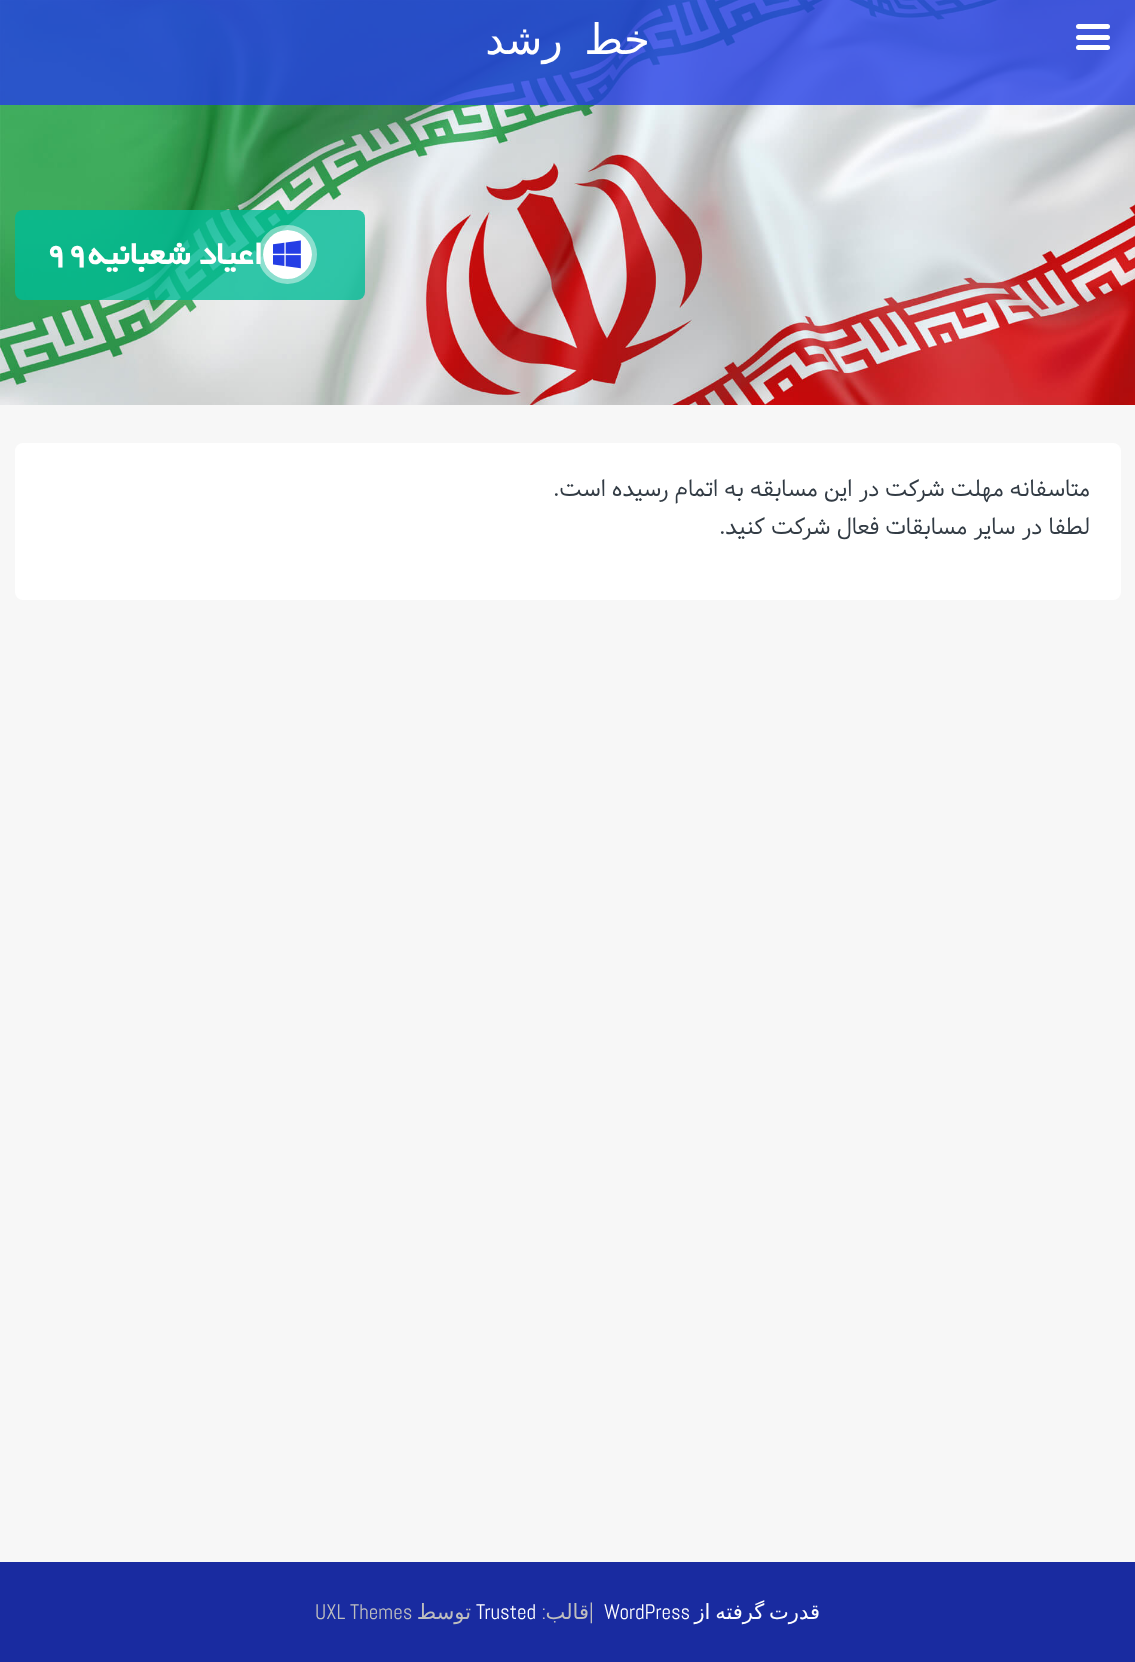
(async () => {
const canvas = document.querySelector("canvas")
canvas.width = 1135
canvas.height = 1662
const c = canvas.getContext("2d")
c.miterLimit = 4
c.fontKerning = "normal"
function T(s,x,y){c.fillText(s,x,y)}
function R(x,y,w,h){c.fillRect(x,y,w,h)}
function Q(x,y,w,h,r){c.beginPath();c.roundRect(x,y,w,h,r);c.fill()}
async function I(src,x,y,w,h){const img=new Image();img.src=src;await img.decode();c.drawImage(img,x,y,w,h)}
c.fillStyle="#f7f7f7"
R(0,0,1135,1662)
await I("1.png",0,0,1135,405)
c.fillStyle="#243ee5cc"
R(0,0,1135,105)
c.fillStyle="#fff"
Q(1076,35,34,5,2.5)
Q(1076,24,34,5,2.5)
Q(1076,45,34,5,2.5)
c.wordSpacing="8px"
c.direction="rtl"
c.font="42px DejaVu Sans"
T("خط رشد",650,54)
c.fillStyle="#00bc96cc"
Q(15,210,350,90,8)
c.beginPath()
c.arc(287.5,254.5,27,0,7)
c.strokeStyle="#ffffff73"
c.lineWidth=5
c.stroke()
c.fillStyle="#fff"
c.beginPath()
c.arc(287.5,254.5,24.5,0,7)
c.fill()
await I("2.png",273,240,28,29)
c.wordSpacing="0px"
c.font="bold 36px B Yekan"
T("اعیاد شعبانیه",263,264)
c.direction="ltr"
T("99",45,264)
Q(15,443,1106,157,8)
c.direction="rtl"
c.font="22.5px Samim"
c.fillStyle="#323b44"
T("متاسفانه مهلت شرکت در این مسابقه به اتمام رسیده است.",1090,496)
T("لطفا در سایر مسابقات فعال شرکت کنید.",1090,534)
c.fillStyle="#192ba0"
R(0,1562,1135,100)
c.wordSpacing="-2px"
c.font="21px DejaVu Sans"
c.fillStyle="#fff"
T("قدرت گرفته از",820,1619)
c.wordSpacing="0px"
c.direction="ltr"
c.font="21px Abel"
T("WordPress",604,1619)
c.fillStyle="#bebebe"
T("|",589,1619)
c.direction="rtl"
c.font="21px DejaVu Sans"
T("قالب",589,1619)
c.font="21px Abel"
T(":",546,1619)
c.direction="ltr"
c.fillStyle="#fff"
T("Trusted",476,1619)
c.direction="rtl"
c.font="21px DejaVu Sans"
c.fillStyle="#bebebe"
T("توسط",471,1619)
c.direction="ltr"
c.font="21px Abel"
T("UXL Themes",315,1619)
})()
